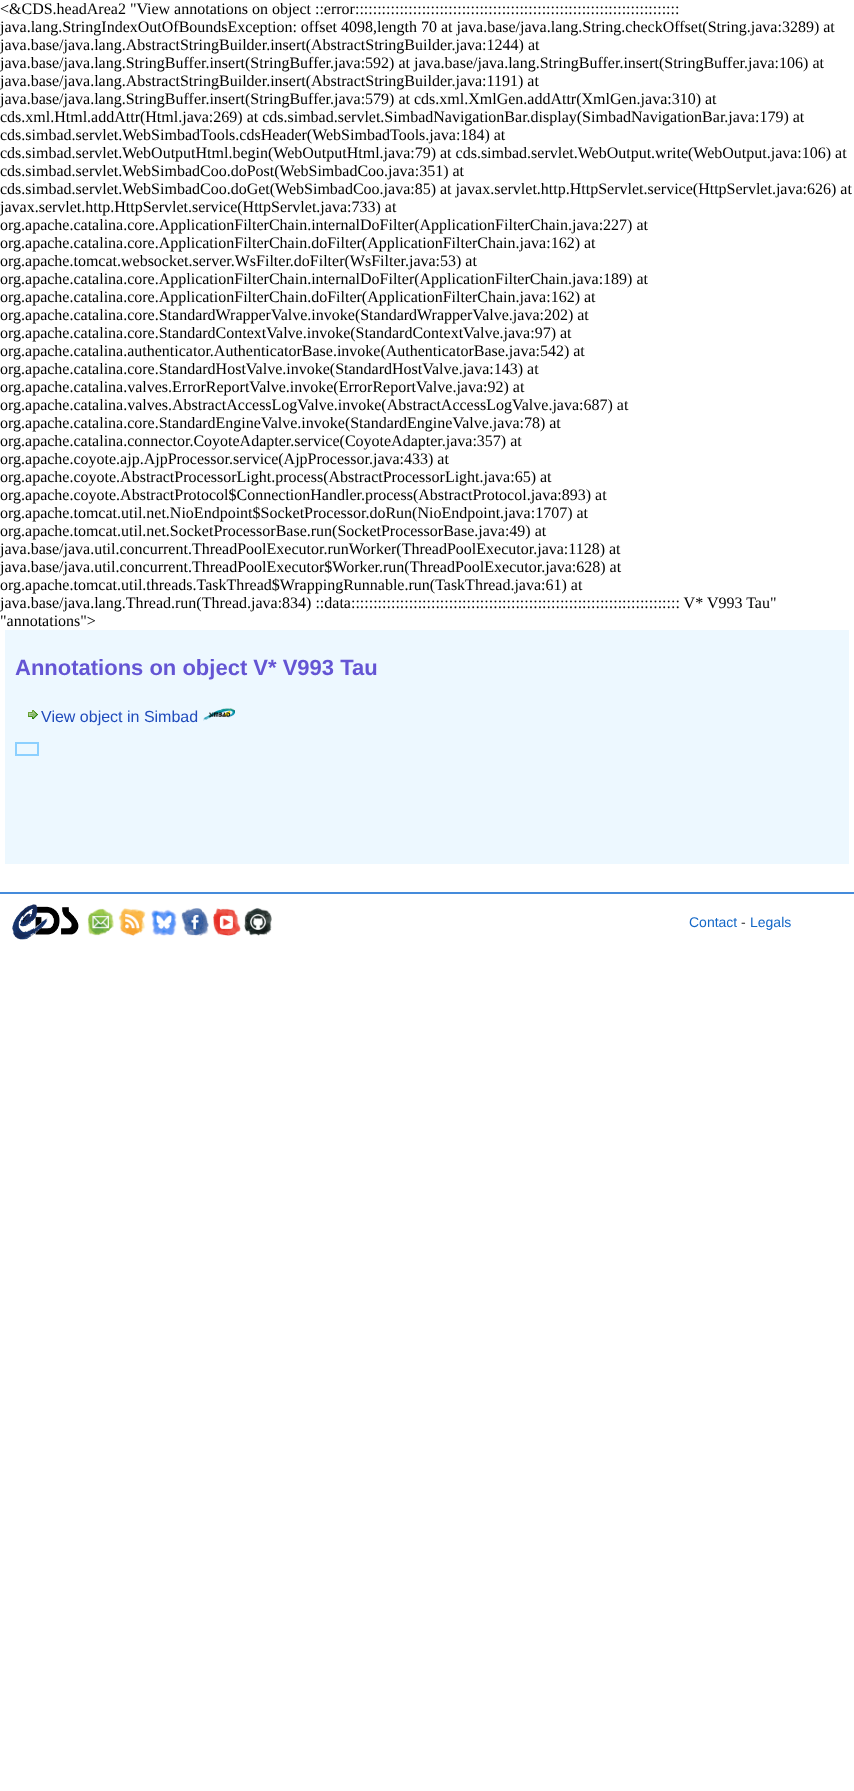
(async () => {
const canvas = document.querySelector("canvas")
canvas.width = 854
canvas.height = 1791
const c = canvas.getContext("2d")
c.miterLimit = 4
c.fontKerning = "normal"
function T(s,x,y){c.fillText(s,x,y)}
function R(x,y,w,h){c.fillRect(x,y,w,h)}
async function I(src,x,y,w,h){const img=new Image();img.src=src;await img.decode();c.drawImage(img,x,y,w,h)}
c.fillStyle="#fff"
R(0,0,854,1791)
c.font="16px Liberation Serif"
c.fillStyle="#000"
T("<&CDS.headArea2 \"View annotations on object ::error:::::::::::::::::::::::::::::::::::::::::::::::::::::::::::::::::::::::::",0,14)
T("java.lang.StringIndexOutOfBoundsException: offset 4098,length 70 at java.base/java.lang.String.checkOffset(String.java:3289) at",0,32)
T("java.base/java.lang.AbstractStringBuilder.insert(AbstractStringBuilder.java:1244) at",0,50)
T("java.base/java.lang.StringBuffer.insert(StringBuffer.java:592) at java.base/java.lang.StringBuffer.insert(StringBuffer.java:106) at",0,68)
T("java.base/java.lang.AbstractStringBuilder.insert(AbstractStringBuilder.java:1191) at",0,86)
T("java.base/java.lang.StringBuffer.insert(StringBuffer.java:579) at cds.xml.XmlGen.addAttr(XmlGen.java:310) at",0,104)
T("cds.xml.Html.addAttr(Html.java:269) at cds.simbad.servlet.SimbadNavigationBar.display(SimbadNavigationBar.java:179) at",0,122)
T("cds.simbad.servlet.WebSimbadTools.cdsHeader(WebSimbadTools.java:184) at",0,140)
T("cds.simbad.servlet.WebOutputHtml.begin(WebOutputHtml.java:79) at cds.simbad.servlet.WebOutput.write(WebOutput.java:106) at",0,158)
T("cds.simbad.servlet.WebSimbadCoo.doPost(WebSimbadCoo.java:351) at",0,176)
T("cds.simbad.servlet.WebSimbadCoo.doGet(WebSimbadCoo.java:85) at javax.servlet.http.HttpServlet.service(HttpServlet.java:626) at",0,194)
T("javax.servlet.http.HttpServlet.service(HttpServlet.java:733) at",0,212)
T("org.apache.catalina.core.ApplicationFilterChain.internalDoFilter(ApplicationFilterChain.java:227) at",0,230)
T("org.apache.catalina.core.ApplicationFilterChain.doFilter(ApplicationFilterChain.java:162) at",0,248)
T("org.apache.tomcat.websocket.server.WsFilter.doFilter(WsFilter.java:53) at",0,266)
T("org.apache.catalina.core.ApplicationFilterChain.internalDoFilter(ApplicationFilterChain.java:189) at",0,284)
T("org.apache.catalina.core.ApplicationFilterChain.doFilter(ApplicationFilterChain.java:162) at",0,302)
T("org.apache.catalina.core.StandardWrapperValve.invoke(StandardWrapperValve.java:202) at",0,320)
T("org.apache.catalina.core.StandardContextValve.invoke(StandardContextValve.java:97) at",0,338)
T("org.apache.catalina.authenticator.AuthenticatorBase.invoke(AuthenticatorBase.java:542) at",0,356)
T("org.apache.catalina.core.StandardHostValve.invoke(StandardHostValve.java:143) at",0,374)
T("org.apache.catalina.valves.ErrorReportValve.invoke(ErrorReportValve.java:92) at",0,392)
T("org.apache.catalina.valves.AbstractAccessLogValve.invoke(AbstractAccessLogValve.java:687) at",0,410)
T("org.apache.catalina.core.StandardEngineValve.invoke(StandardEngineValve.java:78) at",0,428)
T("org.apache.catalina.connector.CoyoteAdapter.service(CoyoteAdapter.java:357) at",0,446)
T("org.apache.coyote.ajp.AjpProcessor.service(AjpProcessor.java:433) at",0,464)
T("org.apache.coyote.AbstractProcessorLight.process(AbstractProcessorLight.java:65) at",0,482)
T("org.apache.coyote.AbstractProtocol$ConnectionHandler.process(AbstractProtocol.java:893) at",0,500)
T("org.apache.tomcat.util.net.NioEndpoint$SocketProcessor.doRun(NioEndpoint.java:1707) at",0,518)
T("org.apache.tomcat.util.net.SocketProcessorBase.run(SocketProcessorBase.java:49) at",0,536)
T("java.base/java.util.concurrent.ThreadPoolExecutor.runWorker(ThreadPoolExecutor.java:1128) at",0,554)
T("java.base/java.util.concurrent.ThreadPoolExecutor$Worker.run(ThreadPoolExecutor.java:628) at",0,572)
T("org.apache.tomcat.util.threads.TaskThread$WrappingRunnable.run(TaskThread.java:61) at",0,590)
T("java.base/java.lang.Thread.run(Thread.java:834) ::data:::::::::::::::::::::::::::::::::::::::::::::::::::::::::::::::::::::::::: V* V993 Tau\"",0,608)
T("\"annotations\">",0,626)
c.fillStyle="#edf8ff"
R(5,630,844,234)
c.font="bold 22px Liberation Sans"
c.fillStyle="#6455d4"
T("Annotations on object V* V993 Tau",15,675)
await I("1.png",28,710,10,10)
c.font="16px Liberation Sans"
c.fillStyle="#1f4bbc"
T("View object in Simbad",41,722)
await I("2.png",203,708,32,13)
c.strokeStyle="#8cd0ff"
c.lineWidth=2
c.strokeRect(16,743,22,12)
c.fillStyle="#458bdb"
R(0,892,854,2)
await I("3.png",12,904,67,36)
await I("4.png",87,908,27,28)
await I("5.png",118,908,28,28)
await I("6.png",151,909,26,27)
await I("7.png",181,908,28,28)
await I("8.png",213,908,28,28)
await I("9.png",244,908,28,28)
c.font="14px Liberation Sans"
c.fillStyle="#1367c7"
T("Contact",689,927)
c.fillStyle="#333"
T("-",741,927)
c.fillStyle="#1367c7"
T("Legals",750,927)
})()
